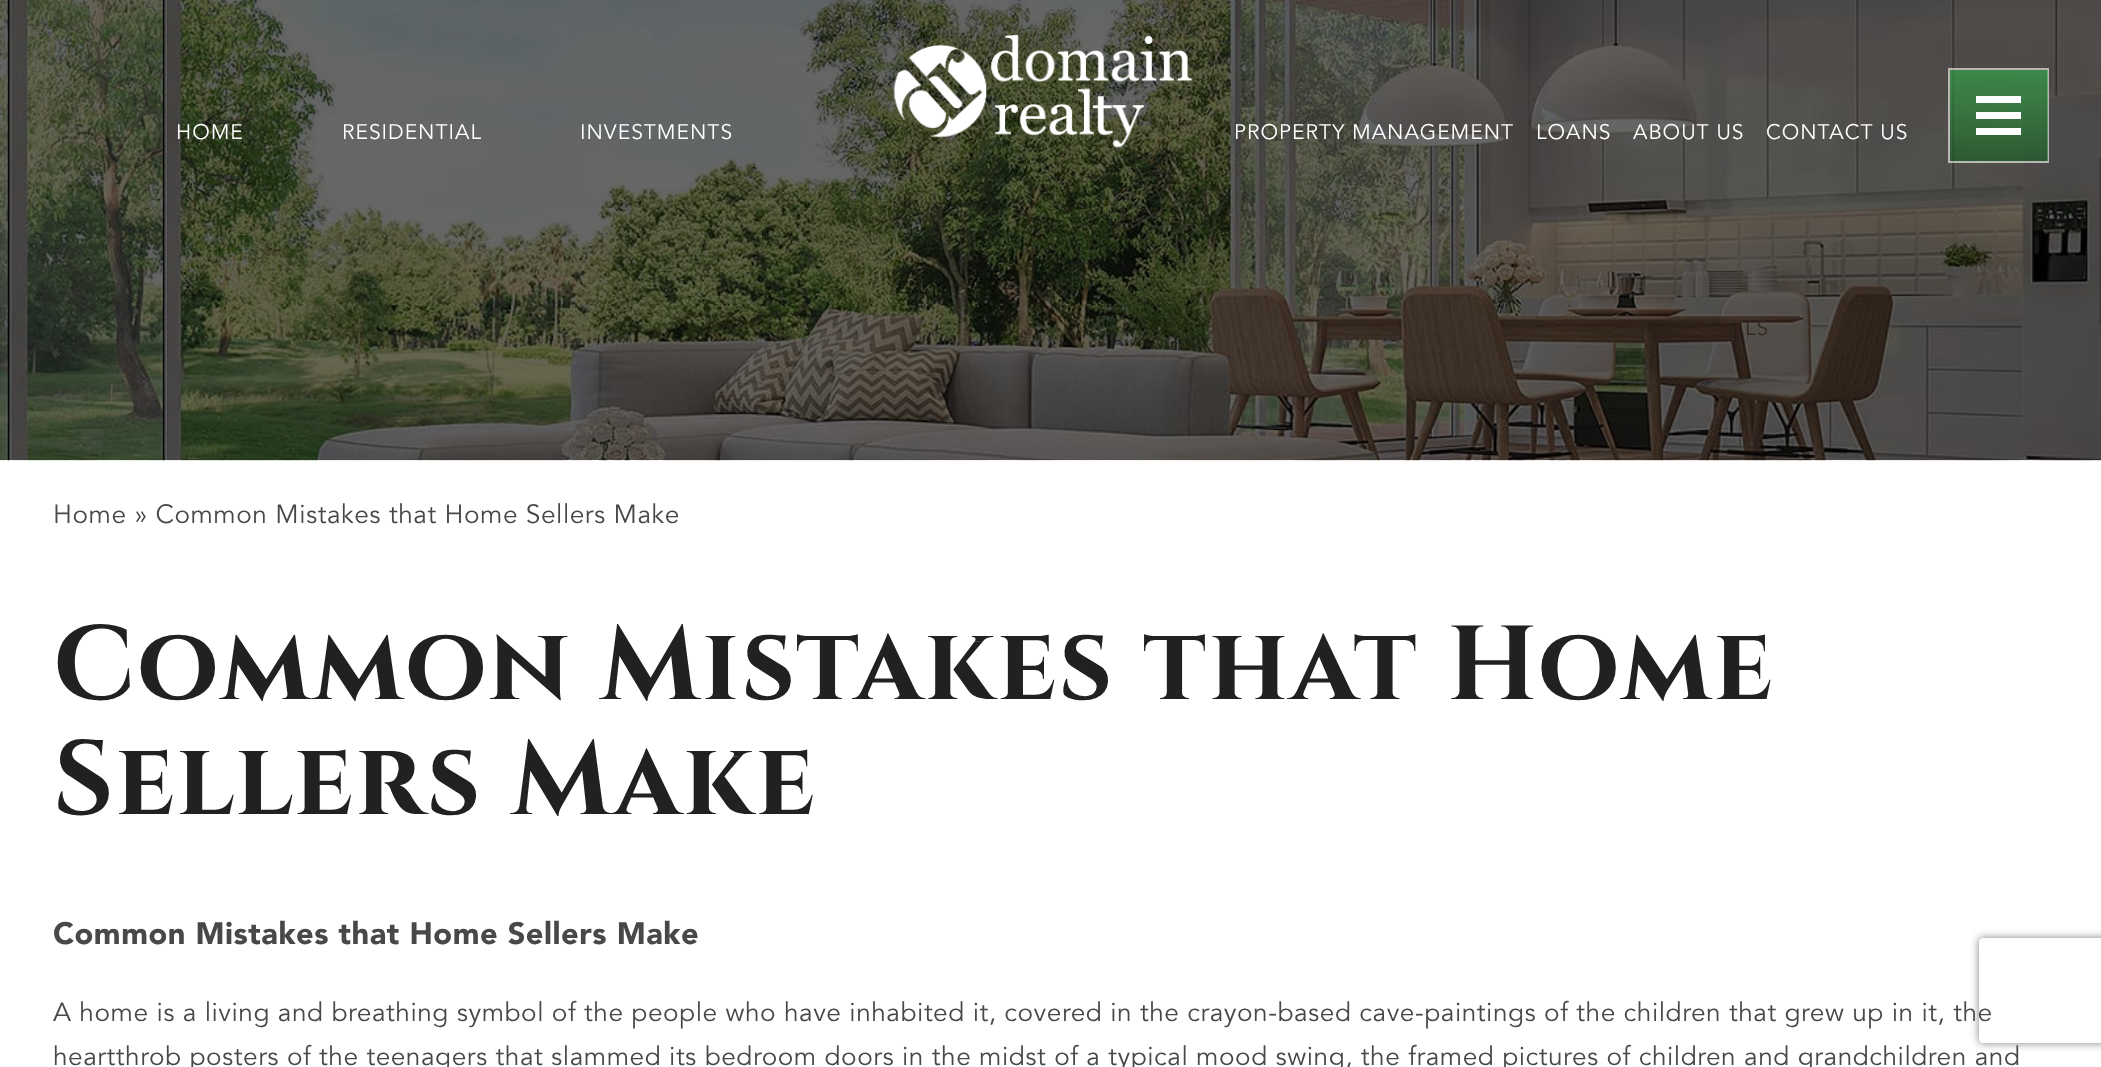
(async () => {
const canvas = document.querySelector("canvas")
canvas.width = 2101
canvas.height = 1067
const c = canvas.getContext("2d")
c.miterLimit = 4
c.fontKerning = "normal"
function T(s,x,y){c.fillText(s,x,y)}
function R(x,y,w,h){c.fillRect(x,y,w,h)}
async function I(src,x,y,w,h){const img=new Image();img.src=src;await img.decode();c.drawImage(img,x,y,w,h)}
let gradient, path
c.fillStyle="#fff"
R(0,0,2101,1067)
await I("2.png",0,0,2101,461)
c.letterSpacing="1px"
c.font="21px Avenir"
T("HOME",176,139)
T("RESIDENTIAL",342,139)
T("INVESTMENTS",580,139)
await I("1.png",893,35,299,113)
T("PROPERTY MANAGEMENT",1234,139)
T("LOANS",1536,139)
T("ABOUT US",1633,139)
c.fillStyle="#342820"
T("LS",1745,335)
c.fillStyle="#fff"
T("CONTACT US",1766,139)
c.strokeStyle="#ffffff99"
c.lineWidth=2
c.strokeRect(1949,69,99,93)
gradient = c.createLinearGradient(1999,70,1999,161)
gradient.addColorStop(0,"#33b04a99")
gradient.addColorStop(1,"#17602499")
c.fillStyle = gradient
R(1950,70,98,91)
c.fillStyle="#fff"
R(1976,96,45,7)
R(1976,112,45,7)
R(1976,128,45,7)
c.letterSpacing="0.53px"
c.font="26.25px Avenir"
c.fillStyle="#484848"
T("Home » Common Mistakes that Home Sellers Make",53,523)
c.letterSpacing="2.1px"
c.font="bold 105px Cinzel"
c.fillStyle="#232020"
T("Common Mistakes that Home",53,699)
T("Sellers Make",53,814)
c.letterSpacing="0.53px"
c.font="900 30.75px Avenir"
c.fillStyle="#484848"
T("Common Mistakes that Home Sellers Make",53,944)
c.font="26.25px Avenir"
T("A home is a living and breathing symbol of the people who have inhabited it, covered in the crayon-based cave-paintings of the children that grew up in it, the",53,1021)
T("heartthrob posters of the teenagers that slammed its bedroom doors in the midst of a typical mood swing, the framed pictures of children and grandchildren and",53,1065)
c.save()
path = new Path2D("M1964 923h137v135h-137zm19 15h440c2 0 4 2 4 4v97c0 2-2 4-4 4h-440c-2 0-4-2-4-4v-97c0-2 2-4 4-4z")
c.clip(path,"evenodd")
c.fillStyle="#808080"
c.filter="blur(4.5px)"
c.beginPath()
c.roundRect(1979,938,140,105,4)
c.fill()
c.filter="none"
c.restore()
})()
